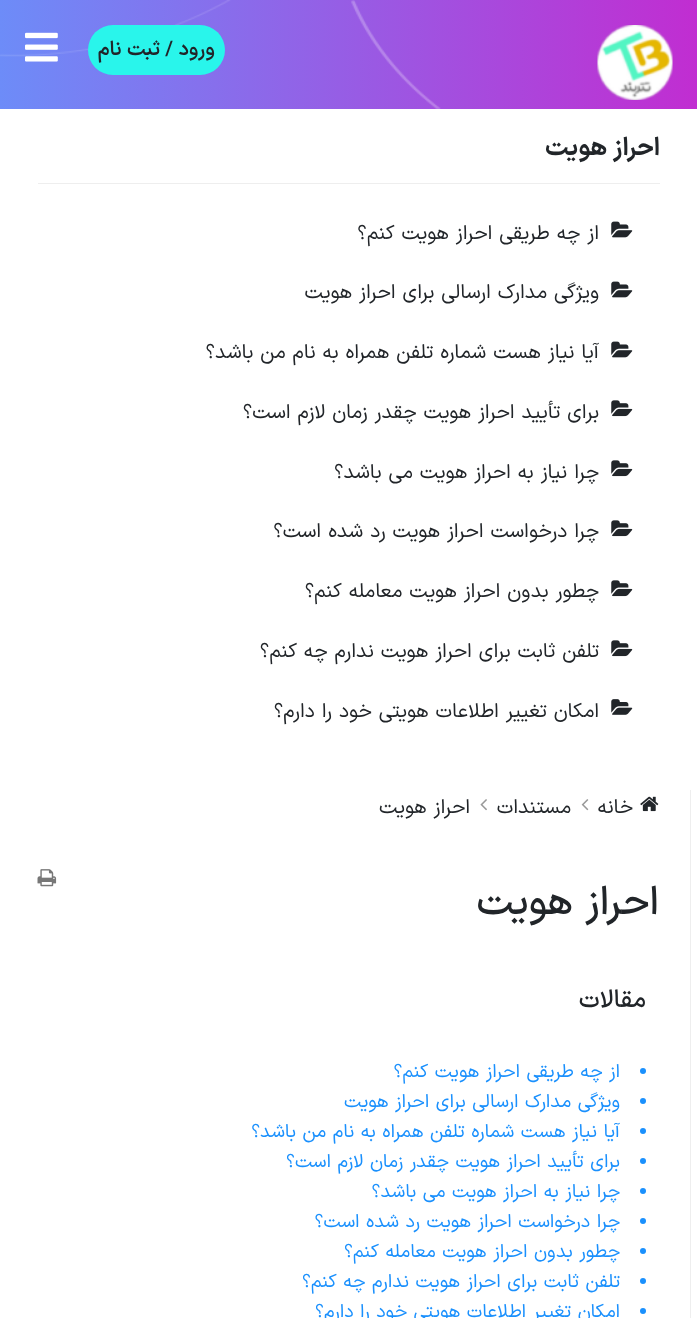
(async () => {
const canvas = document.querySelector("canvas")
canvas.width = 697
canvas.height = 1318
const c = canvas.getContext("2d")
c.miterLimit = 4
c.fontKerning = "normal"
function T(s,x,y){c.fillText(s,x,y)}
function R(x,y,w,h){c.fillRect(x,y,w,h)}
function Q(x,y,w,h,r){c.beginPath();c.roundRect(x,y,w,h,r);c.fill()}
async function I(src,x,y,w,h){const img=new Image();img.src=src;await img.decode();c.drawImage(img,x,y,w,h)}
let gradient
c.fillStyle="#fff"
R(0,0,697,1318)
gradient = c.createLinearGradient(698,54,0,54)
gradient.addColorStop(0,"#c12dd1")
gradient.addColorStop(1,"#6d8cf8")
c.fillStyle = gradient
R(0,0,697,109)
await I("1.png",0,0,441,109)
await I("2.png",597,25,76,75)
c.fillStyle="#29f5eb"
Q(88,25,137,50,25)
c.direction="rtl"
c.font="600 20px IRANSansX"
c.fillStyle="#212529"
T("ورود / ثبت نام",215,55)
await I("3.png",25,32,33,30)
c.fillStyle="#eee"
R(38,183,622,1)
c.font="bold 25px IRANSansX"
c.fillStyle="#212529"
T("احراز هویت",660,155)
await I("4.png",611,221,22,17)
c.font="20px IRANSansX"
T("از چه طریقی احراز هویت کنم؟",599,239)
await I("4.png",611,281,22,17)
T("ویژگی مدارک ارسالی برای احراز هویت",599,298)
await I("4.png",611,341,22,17)
T("آیا نیاز هست شماره تلفن همراه به نام من باشد؟",599,358)
await I("5.png",611,400,22,17)
T("برای تأیید احراز هویت چقدر زمان لازم است؟",599,418)
await I("5.png",611,460,22,17)
T("چرا نیاز به احراز هویت می باشد؟",599,478)
await I("5.png",611,520,22,17)
T("چرا درخواست احراز هویت رد شده است؟",599,537)
await I("5.png",611,580,22,17)
T("چطور بدون احراز هویت معامله کنم؟",599,597)
await I("5.png",611,640,22,17)
T("تلفن ثابت برای احراز هویت ندارم چه کنم؟",599,657)
await I("6.png",611,699,22,16)
T("امکان تغییر اطلاعات هویتی خود را دارم؟",599,717)
c.fillStyle="#eee"
R(690,790,1,528)
await I("7.png",640,796,19,16)
c.fillStyle="#212529"
T("خانه",633,813)
await I("8.png",581,799,8,12)
T("مستندات",571,813)
await I("9.png",480,799,7,12)
T("احراز هویت",470,813)
await I("10.png",37,869,20,18)
c.font="500 40px IRANSansX"
T("احراز هویت",659,914)
c.font="500 25px IRANSansX"
T("مقالات",646,1007)
c.fillStyle="#1a90fd"
c.beginPath()
c.arc(643,1071,3,0,7)
c.fill()
c.font="18.75px IRANSansX"
T("از چه طریقی احراز هویت کنم؟",620,1077)
c.beginPath()
c.arc(643,1101,3,0,7)
c.fill()
T("ویژگی مدارک ارسالی برای احراز هویت",620,1107)
c.beginPath()
c.arc(643,1131,3,0,7)
c.fill()
T("آیا نیاز هست شماره تلفن همراه به نام من باشد؟",620,1137)
c.beginPath()
c.arc(643,1161,3,0,7)
c.fill()
T("برای تأیید احراز هویت چقدر زمان لازم است؟",620,1167)
c.beginPath()
c.arc(643,1191,3,0,7)
c.fill()
T("چرا نیاز به احراز هویت می باشد؟",620,1197)
c.beginPath()
c.arc(643,1221,3,0,7)
c.fill()
T("چرا درخواست احراز هویت رد شده است؟",620,1227)
c.beginPath()
c.arc(643,1251,3,0,7)
c.fill()
T("چطور بدون احراز هویت معامله کنم؟",620,1257)
c.beginPath()
c.arc(643,1281,3,0,7)
c.fill()
T("تلفن ثابت برای احراز هویت ندارم چه کنم؟",620,1287)
c.beginPath()
c.arc(643,1311,3,0,7)
c.fill()
T("امکان تغییر اطلاعات هویتی خود را دارم؟",620,1317)
})()
